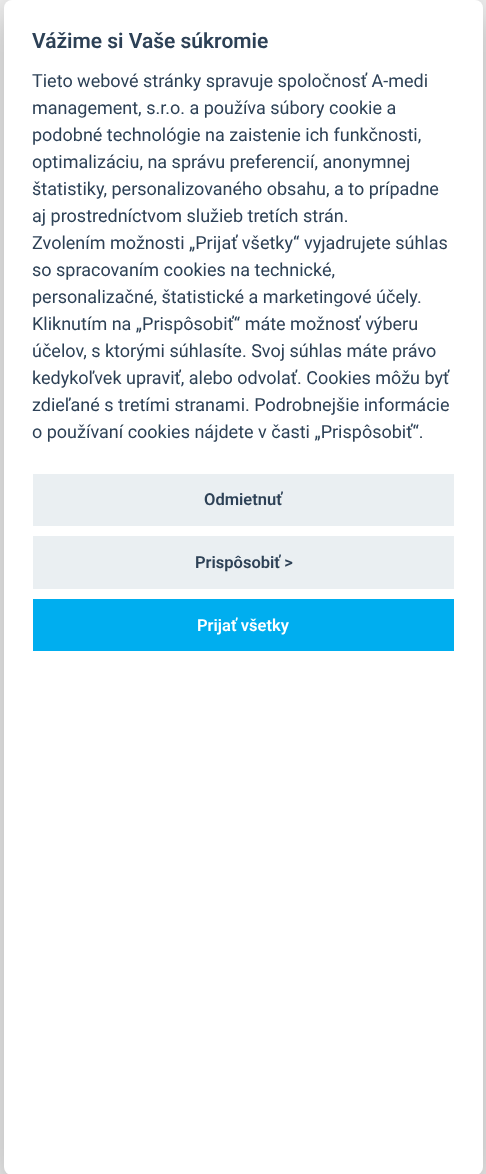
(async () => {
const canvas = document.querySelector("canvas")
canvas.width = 486
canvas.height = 1174
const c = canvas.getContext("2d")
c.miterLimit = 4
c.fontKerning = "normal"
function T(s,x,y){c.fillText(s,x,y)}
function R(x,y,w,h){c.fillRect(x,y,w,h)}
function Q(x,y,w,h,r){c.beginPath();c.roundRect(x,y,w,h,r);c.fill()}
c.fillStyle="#efefef"
R(0,0,486,1174)
c.fillStyle="#02020347"
c.filter="blur(19px)"
c.beginPath()
c.roundRect(4,13,479,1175,8)
c.fill()
c.filter="none"
c.fillStyle="#fff"
Q(4,0,479,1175,8)
c.font="600 21px Roboto"
c.fillStyle="#2d4156"
T("Vážime si Vaše súkromie",32,48)
c.font="18px Roboto"
T("Tieto webové stránky spravuje spoločnosť A-medi",32,87)
T("management, s.r.o. a používa súbory cookie a",32,114)
T("podobné technológie na zaistenie ich funkčnosti,",32,141)
T("optimalizáciu, na správu preferencií, anonymnej",32,168)
T("štatistiky, personalizovaného obsahu, a to prípadne",32,195)
T("aj prostredníctvom služieb tretích strán.",32,222)
T("Zvolením možnosti „Prijať všetky“ vyjadrujete súhlas",32,249)
T("so spracovaním cookies na technické,",32,276)
T("personalizačné, štatistické a marketingové účely.",32,303)
T("Kliknutím na „Prispôsobiť“ máte možnosť výberu",32,330)
T("účelov, s ktorými súhlasíte. Svoj súhlas máte právo",32,357)
T("kedykoľvek upraviť, alebo odvolať. Cookies môžu byť",32,384)
T("zdieľané s tretími stranami. Podrobnejšie informácie",32,411)
T("o používaní cookies nájdete v časti „Prispôsobiť“.",32,438)
c.fillStyle="#eaeff2"
R(33,474,421,52)
c.font="600 16.5px Roboto"
c.fillStyle="#2d4156"
T("Odmietnuť",204,505)
c.fillStyle="#eaeff2"
R(33,536,421,53)
c.fillStyle="#2d4156"
T("Prispôsobiť >",195,568)
c.fillStyle="#00aeef"
R(33,599,421,52)
c.fillStyle="#fff"
T("Prijať všetky",197,631)
})()
